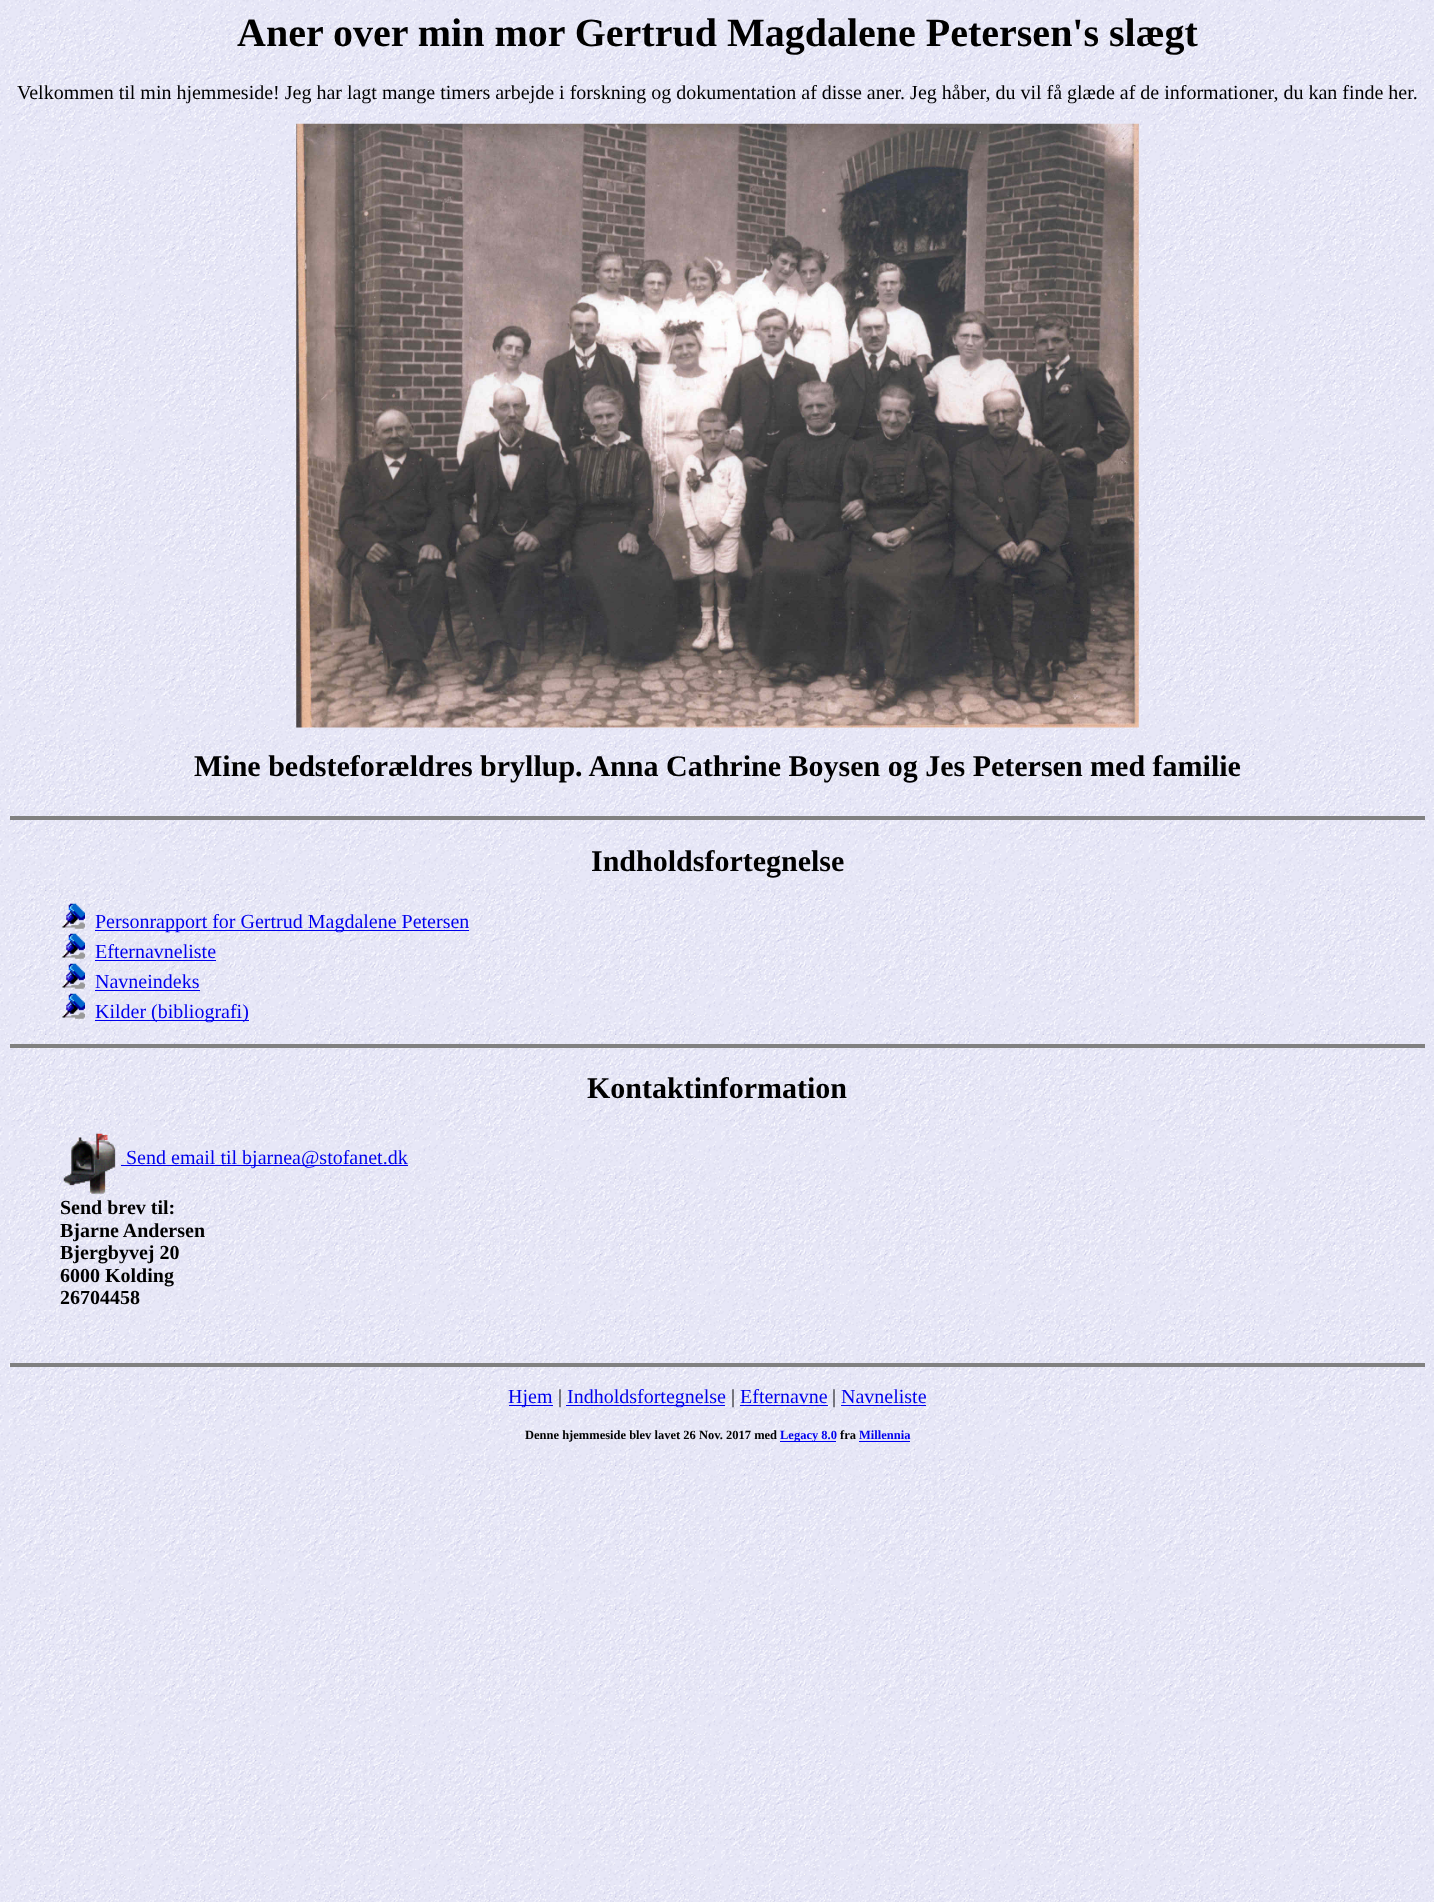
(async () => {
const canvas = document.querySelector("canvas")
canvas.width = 1434
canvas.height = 1902
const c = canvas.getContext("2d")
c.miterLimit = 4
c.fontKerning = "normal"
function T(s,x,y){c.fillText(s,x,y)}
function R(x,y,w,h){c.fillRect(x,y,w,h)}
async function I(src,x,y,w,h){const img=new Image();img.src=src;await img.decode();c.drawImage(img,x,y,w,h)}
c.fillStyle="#fff"
R(0,0,1434,1902)
await I("1.png",0,0,1434,1902)
c.font="bold 40px Liberation Serif"
c.fillStyle="#000"
T("Aner over min mor Gertrud Magdalene Petersen's slægt",237,46)
c.font="20px Liberation Serif"
T("Velkommen til min hjemmeside! Jeg har lagt mange timers arbejde i forskning og dokumentation af disse aner. Jeg håber, du vil få glæde af de informationer, du kan finde her.",17,99)
await I("2.png",296,123,843,605)
c.font="bold 30px Liberation Serif"
T("Mine bedsteforældres bryllup. Anna Cathrine Boysen og Jes Petersen med familie",194,776)
c.fillStyle="#808080"
R(10,816,1415,4)
c.fillStyle="#000"
T("Indholdsfortegnelse",591,871)
await I("3.png",62,903,23,26)
c.fillStyle="#00e"
R(95,930,374,1)
c.font="20px Liberation Serif"
T("Personrapport for Gertrud Magdalene Petersen",95,928)
await I("4.png",62,933,23,26)
T("Efternavneliste",95,958)
R(95,960,121,1)
await I("5.png",62,963,23,26)
T("Navneindeks",95,988)
R(95,990,105,1)
await I("6.png",62,993,23,26)
R(95,1020,154,1)
T("Kilder (bibliografi)",95,1018)
c.fillStyle="#808080"
R(10,1044,1415,4)
c.font="bold 30px Liberation Serif"
c.fillStyle="#000"
T("Kontaktinformation",587,1098)
await I("7.png",63,1133,53,61)
c.fillStyle="#00e"
R(121,1165,287,1)
c.font="20px Liberation Serif"
T("Send email til bjarnea@stofanet.dk",126,1164)
c.font="bold 20px Liberation Serif"
c.fillStyle="#000"
T("Send brev til:",60,1214)
T("Bjarne Andersen",60,1237)
T("Bjergbyvej 20",60,1259)
T("6000 Kolding",60,1282)
T("26704458",60,1304)
c.fillStyle="#808080"
R(10,1363,1415,4)
c.fillStyle="#00e"
R(509,1405,44,1)
c.font="20px Liberation Serif"
T("Hjem",508,1403)
c.fillStyle="#000"
T("|",558,1403)
c.fillStyle="#00e"
R(566,1405,159,1)
T("Indholdsfortegnelse",567,1403)
c.fillStyle="#000"
T("|",731,1403)
c.fillStyle="#00e"
T("Efternavne",740,1403)
R(740,1405,88,1)
c.fillStyle="#000"
T("|",832,1403)
c.fillStyle="#00e"
T("Navneliste",841,1403)
R(841,1405,85,1)
c.font="bold 12.5px Liberation Serif"
c.fillStyle="#000"
T("Denne hjemmeside blev lavet 26 Nov. 2017 med",525,1439)
c.fillStyle="#00e"
R(780,1441,56,1)
T("Legacy 8.0",780,1439)
c.fillStyle="#000"
T("fra",840,1439)
c.fillStyle="#00e"
T("Millennia",859,1439)
R(859,1441,51,1)
})()
